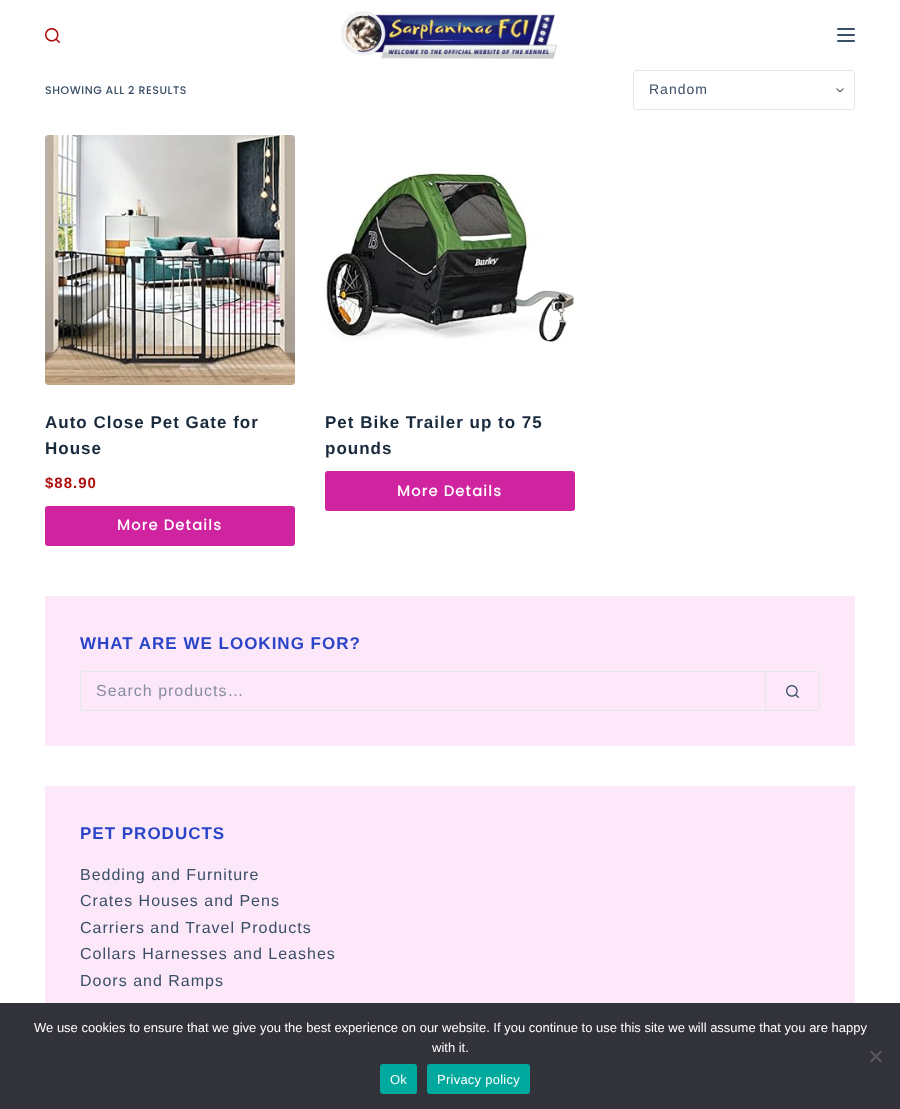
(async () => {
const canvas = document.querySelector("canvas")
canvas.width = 900
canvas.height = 1109
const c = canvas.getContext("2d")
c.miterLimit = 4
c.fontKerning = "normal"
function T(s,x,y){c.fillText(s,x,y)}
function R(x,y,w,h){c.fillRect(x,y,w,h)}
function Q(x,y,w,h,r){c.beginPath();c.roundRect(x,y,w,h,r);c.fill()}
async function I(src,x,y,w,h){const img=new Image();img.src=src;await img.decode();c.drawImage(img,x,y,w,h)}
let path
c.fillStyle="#fff"
R(0,0,900,1109)
await I("1.png",45,28,15,15)
await I("2.png",341,11,217,48)
c.fillStyle="#3a4f66"
Q(837,28,18,2,1)
Q(837,34,18,2,1)
Q(837,40,18,2,1)
c.letterSpacing="0.55px"
c.font="500 11px Poppins"
T("SHOWING ALL 2 RESULTS",45,94)
await I("3.png",836,88,8,4)
c.beginPath()
c.roundRect(633.5,70.5,221,39,2.5)
c.strokeStyle="#e1e8ed"
c.stroke()
c.letterSpacing="1px"
c.font="14px Liberation Sans"
T("Random",649,94)
await I("4.png",45,135,250,250)
c.font="bold 17px Liberation Sans"
c.fillStyle="#192a3d"
T("Auto Close Pet Gate for",45,428)
T("House",45,454)
c.font="bold 15px Liberation Sans"
c.fillStyle="#ad0e0e"
T("$88.90",45,488)
c.fillStyle="#d0239f"
Q(45,506,250,40,3)
c.font="500 15px Poppins"
c.fillStyle="#fff"
T("More Details",117,530)
await I("5.png",325,170,250,172)
c.font="bold 17px Liberation Sans"
c.fillStyle="#192a3d"
T("Pet Bike Trailer up to 75",325,428)
T("pounds",325,454)
c.fillStyle="#d0239f"
Q(325,471,250,40,3)
c.font="500 15px Poppins"
c.fillStyle="#fff"
T("More Details",397,496)
c.fillStyle="#fde8fa"
R(45,596,810,150)
c.font="bold 17px Liberation Sans"
c.fillStyle="#2b45c9"
T("WHAT ARE WE LOOKING FOR?",80,649)
c.fillStyle="#e1e8ed"
path = new Path2D("M83 671h682v40h-682c-2 0-3-1-3-3v-34c0-2 1-3 3-3zm0 1h682v38h-682c-1 0-2-1-2-2v-34c0-1 1-2 2-2z")
c.fill(path,"evenodd")
c.font="16px Liberation Sans"
c.fillStyle="#888ca1"
T("Search products…",96,696)
c.beginPath()
c.roundRect(765.5,671.5,54,39,[0,2.5,2.5,0])
c.stroke()
await I("6.png",786,685,13,13)
c.fillStyle="#fde8fa"
R(45,786,810,217)
c.font="bold 17px Liberation Sans"
c.fillStyle="#2b45c9"
T("PET PRODUCTS",80,839)
c.font="16px Liberation Sans"
c.fillStyle="#3a4f66"
T("Bedding and Furniture",80,880)
T("Crates Houses and Pens",80,906)
T("Carriers and Travel Products",80,933)
T("Collars Harnesses and Leashes",80,959)
T("Doors and Ramps",80,986)
c.fillStyle="#32323a"
R(0,1003,900,106)
c.letterSpacing="0px"
c.font="13px Liberation Sans"
c.fillStyle="#fff"
T("We use cookies to ensure that we give you the best experience on our website. If you continue to use this site we will assume that you are happy",34,1032)
T("with it.",432,1052)
c.fillStyle="#59595d"
path = new Path2D("M880.5 1050.5l1.5 1.5l-10.5 10.5l-1.5-1.5z")
c.fill(path)
path = new Path2D("M870 1052l1.5-1.5l10.5 10.5l-1.5 1.5z")
c.fill(path)
c.fillStyle="#00a99d"
Q(380,1064,37,30,3)
c.letterSpacing="0.25px"
c.fillStyle="#fff"
T("Ok",390,1084)
c.fillStyle="#00a99d"
Q(427,1064,103,30,3)
c.fillStyle="#fff"
T("Privacy policy",437,1084)
})()
